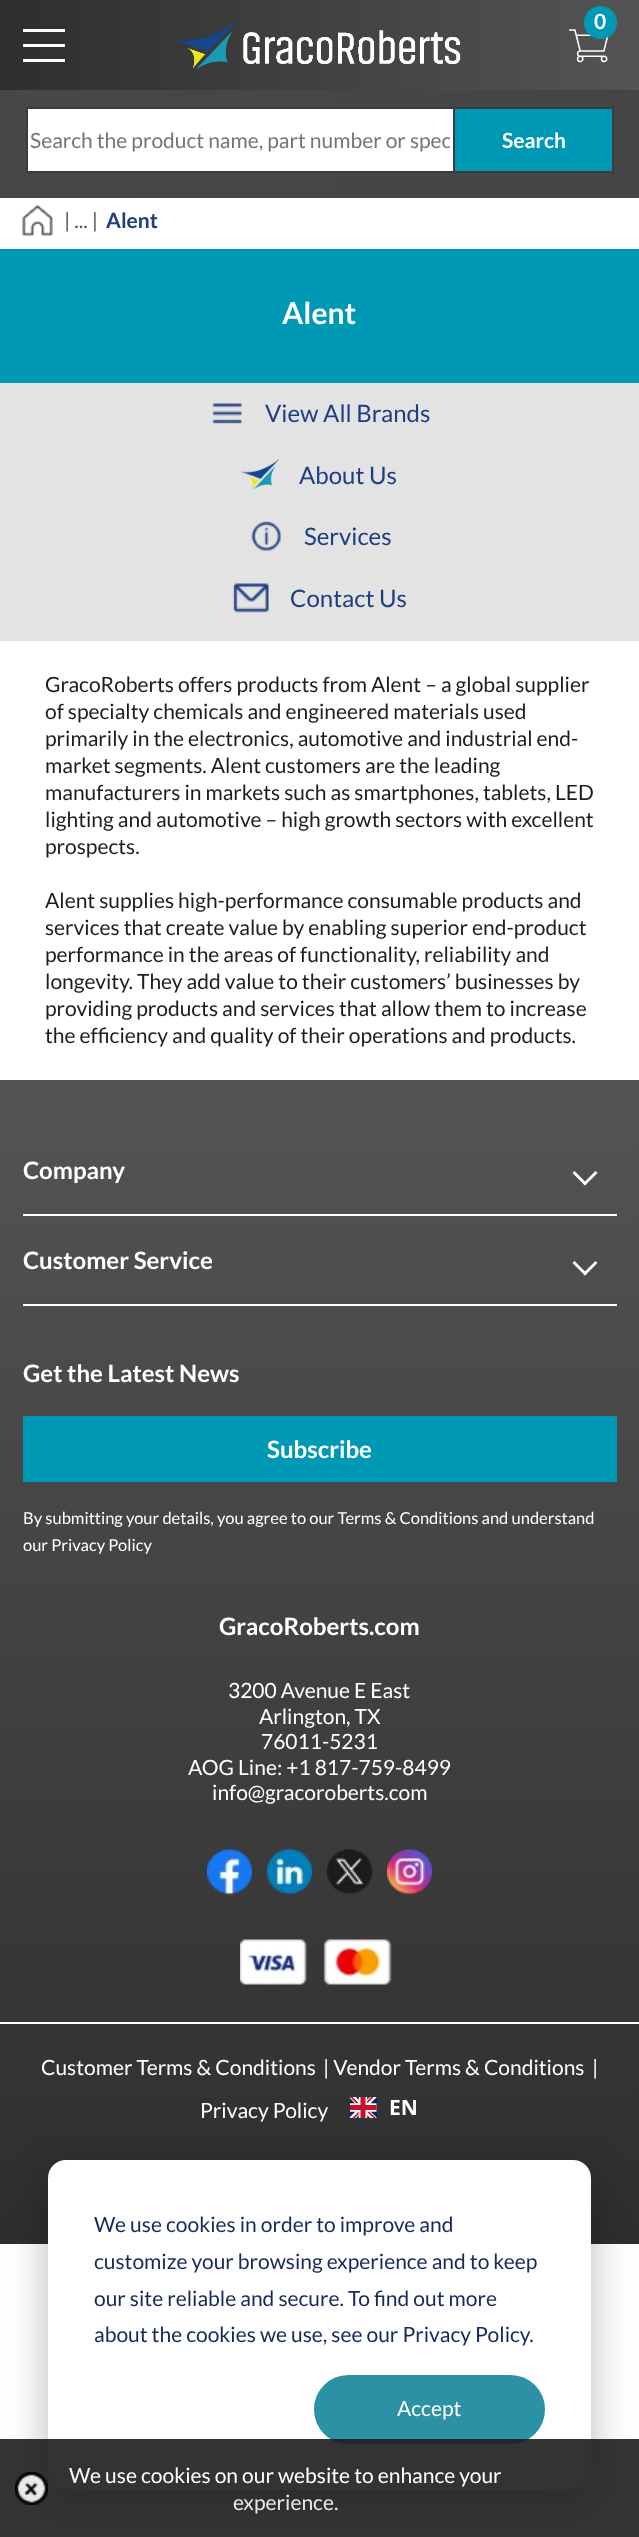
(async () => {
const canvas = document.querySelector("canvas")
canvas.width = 639
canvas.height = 2537
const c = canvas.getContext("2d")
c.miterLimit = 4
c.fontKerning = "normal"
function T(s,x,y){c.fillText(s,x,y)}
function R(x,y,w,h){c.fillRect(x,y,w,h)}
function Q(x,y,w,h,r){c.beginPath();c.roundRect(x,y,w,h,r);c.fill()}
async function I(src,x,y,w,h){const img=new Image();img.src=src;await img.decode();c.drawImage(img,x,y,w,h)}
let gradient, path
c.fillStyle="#fff"
R(0,0,639,2537)
gradient = c.createLinearGradient(0,99,639,99)
gradient.addColorStop(0,"#2e2e2e")
gradient.addColorStop(1,"#545454")
c.fillStyle = gradient
R(0,0,639,90)
c.fillStyle="#fff"
R(23,29,42,3)
R(23,44,42,3)
R(23,59,42,3)
await I("1.png",176,18,285,52)
await I("2.png",569,29,40,34)
c.fillStyle="#0099b5"
c.beginPath()
c.arc(600.5,22.5,16.5,0,7)
c.fill()
c.font="bold 21px Lato"
c.fillStyle="#fff"
T("0",594,29)
gradient = c.createLinearGradient(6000,144,-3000,144)
gradient.addColorStop(0,"#2e2e2e")
gradient.addColorStop(1,"#545454")
c.fillStyle = gradient
R(0,90,639,108)
c.fillStyle="#fff"
R(28,109,425,62)
c.fillStyle="#3d3c3c"
R(26,107,427,2)
R(26,171,427,2)
R(26,107,2,66)
c.save()
c.beginPath()
c.rect(30,128,420,25)
c.clip()
c.font="21px Lato"
c.fillStyle="#757575"
T("Search the product name, part number or spec",30,148)
c.restore()
c.fillStyle="#0099b5"
c.beginPath()
c.rect(454,108,159,64)
c.fill()
c.strokeStyle="#3d3c3c"
c.lineWidth=2
c.stroke()
c.fillStyle="#fff"
T("Search",502,148)
await I("3.png",22,205,31,31)
c.font="21px Lato"
c.fillStyle="#545454"
T("| ... |",64,228)
c.font="bold 21px Lato"
c.fillStyle="#1f3d82"
T("Alent",106,228)
c.fillStyle="#0099b5"
R(0,249,639,134)
c.font="bold 30px Lato"
c.fillStyle="#fff"
T("Alent",282,324)
c.fillStyle="#e3e3e3"
R(0,383,639,258)
await I("4.png",212,403,30,21)
c.font="24px Lato"
c.fillStyle="#1f3d82"
T("View All Brands",265,422)
await I("5.png",241,459,38,31)
T("About Us",299,484)
await I("6.png",251,521,30,30)
T("Services",304,545)
await I("7.png",233,583,36,30)
T("Contact Us",290,607)
c.font="21px Lato"
c.fillStyle="#1d1d1b"
T("GracoRoberts offers products from Alent – a global supplier",45,692)
T("of specialty chemicals and engineered materials used",45,719)
T("primarily in the electronics, automotive and industrial end-",45,746)
T("market segments. Alent customers are the leading",45,773)
T("manufacturers in markets such as smartphones, tablets, LED",45,800)
T("lighting and automotive – high growth sectors with excellent",45,827)
T("prospects.",45,854)
T("Alent supplies high-performance consumable products and",45,908)
T("services that create value by enabling superior end-product",45,935)
T("performance in the areas of functionality, reliability and",45,962)
T("longevity. They add value to their customers’ businesses by",45,989)
T("providing products and services that allow them to increase",45,1016)
T("the efficiency and quality of their operations and products.",45,1043)
gradient = c.createLinearGradient(320,2244,320,1080)
gradient.addColorStop(0,"#2e2e2e")
gradient.addColorStop(1,"#545454")
c.fillStyle = gradient
R(0,1080,639,1164)
c.fillStyle="#fff"
R(23,1214,594,2)
c.font="bold 24px Lato"
T("Company",23,1179)
path = new Path2D("M597.5 1173l-12.5 12.5l-2-2l12.5-12.5z")
c.fill(path)
path = new Path2D("M587 1183.5l-2 2l-12.5-12.5l2-2z")
c.fill(path)
R(23,1304,594,2)
T("Customer Service",23,1269)
path = new Path2D("M597.5 1263l-12.5 12.5l-2-2l12.5-12.5z")
c.fill(path)
path = new Path2D("M587 1273.5l-2 2l-12.5-12.5l2-2z")
c.fill(path)
T("Get the Latest News",23,1382)
c.fillStyle="#0099b5"
R(23,1416,594,66)
c.fillStyle="#fff"
T("Subscribe",267,1458)
c.font="16.5px Lato"
T("By submitting your details, you agree to our Terms & Conditions and understand",23,1524)
T("our Privacy Policy",23,1551)
c.font="bold 24px Lato"
T("GracoRoberts.com",219,1635)
c.font="21px Lato"
T("3200 Avenue E East",228,1698)
T("Arlington, TX",259,1724)
T("76011-5231",261,1749)
T("AOG Line: +1 817-759-8499",188,1775)
T("info@gracoroberts.com",212,1800)
await I("8.png",207,1849,45,46)
await I("9.png",267,1849,45,46)
await I("10.png",327,1849,45,46)
await I("11.png",387,1849,45,46)
await I("12.png",240,1939,152,46)
R(0,2022,639,2)
T("Customer Terms & Conditions",41,2075)
T("| Vendor Terms & Conditions",323,2075)
T("|",592,2075)
T("Privacy Policy",200,2118)
await I("13.png",350,2097,27,21)
c.font="bold 21px Noto Sans"
T("EN",389,2115)
c.fillStyle="#00000047"
c.filter="blur(21px)"
c.beginPath()
c.roundRect(48,2172,543,330,18)
c.fill()
c.filter="none"
c.fillStyle="#fff"
Q(48,2160,543,330,18)
c.fillStyle="#2c91a4"
c.beginPath()
c.roundRect(315,2376,229,67,33.5)
c.fill()
c.strokeStyle="#2c91a4"
c.stroke()
c.fillStyle="#1d1d1be6"
R(0,2439,639,98)
await I("14.png",15,2472,33,33)
c.font="21px Lato"
c.fillStyle="#fff"
T("We use cookies on our website to enhance your",69,2483)
c.fillStyle="#eaeaea"
T("experience.",233,2510)
c.fillStyle="#15295a"
T("We use cookies in order to improve and",94,2232)
T("customize your browsing experience and to keep",94,2269)
T("our site reliable and secure. To find out more",94,2306)
T("about the cookies we use, see our Privacy Policy.",94,2342)
c.fillStyle="#fff"
T("Accept",397,2416)
})()
